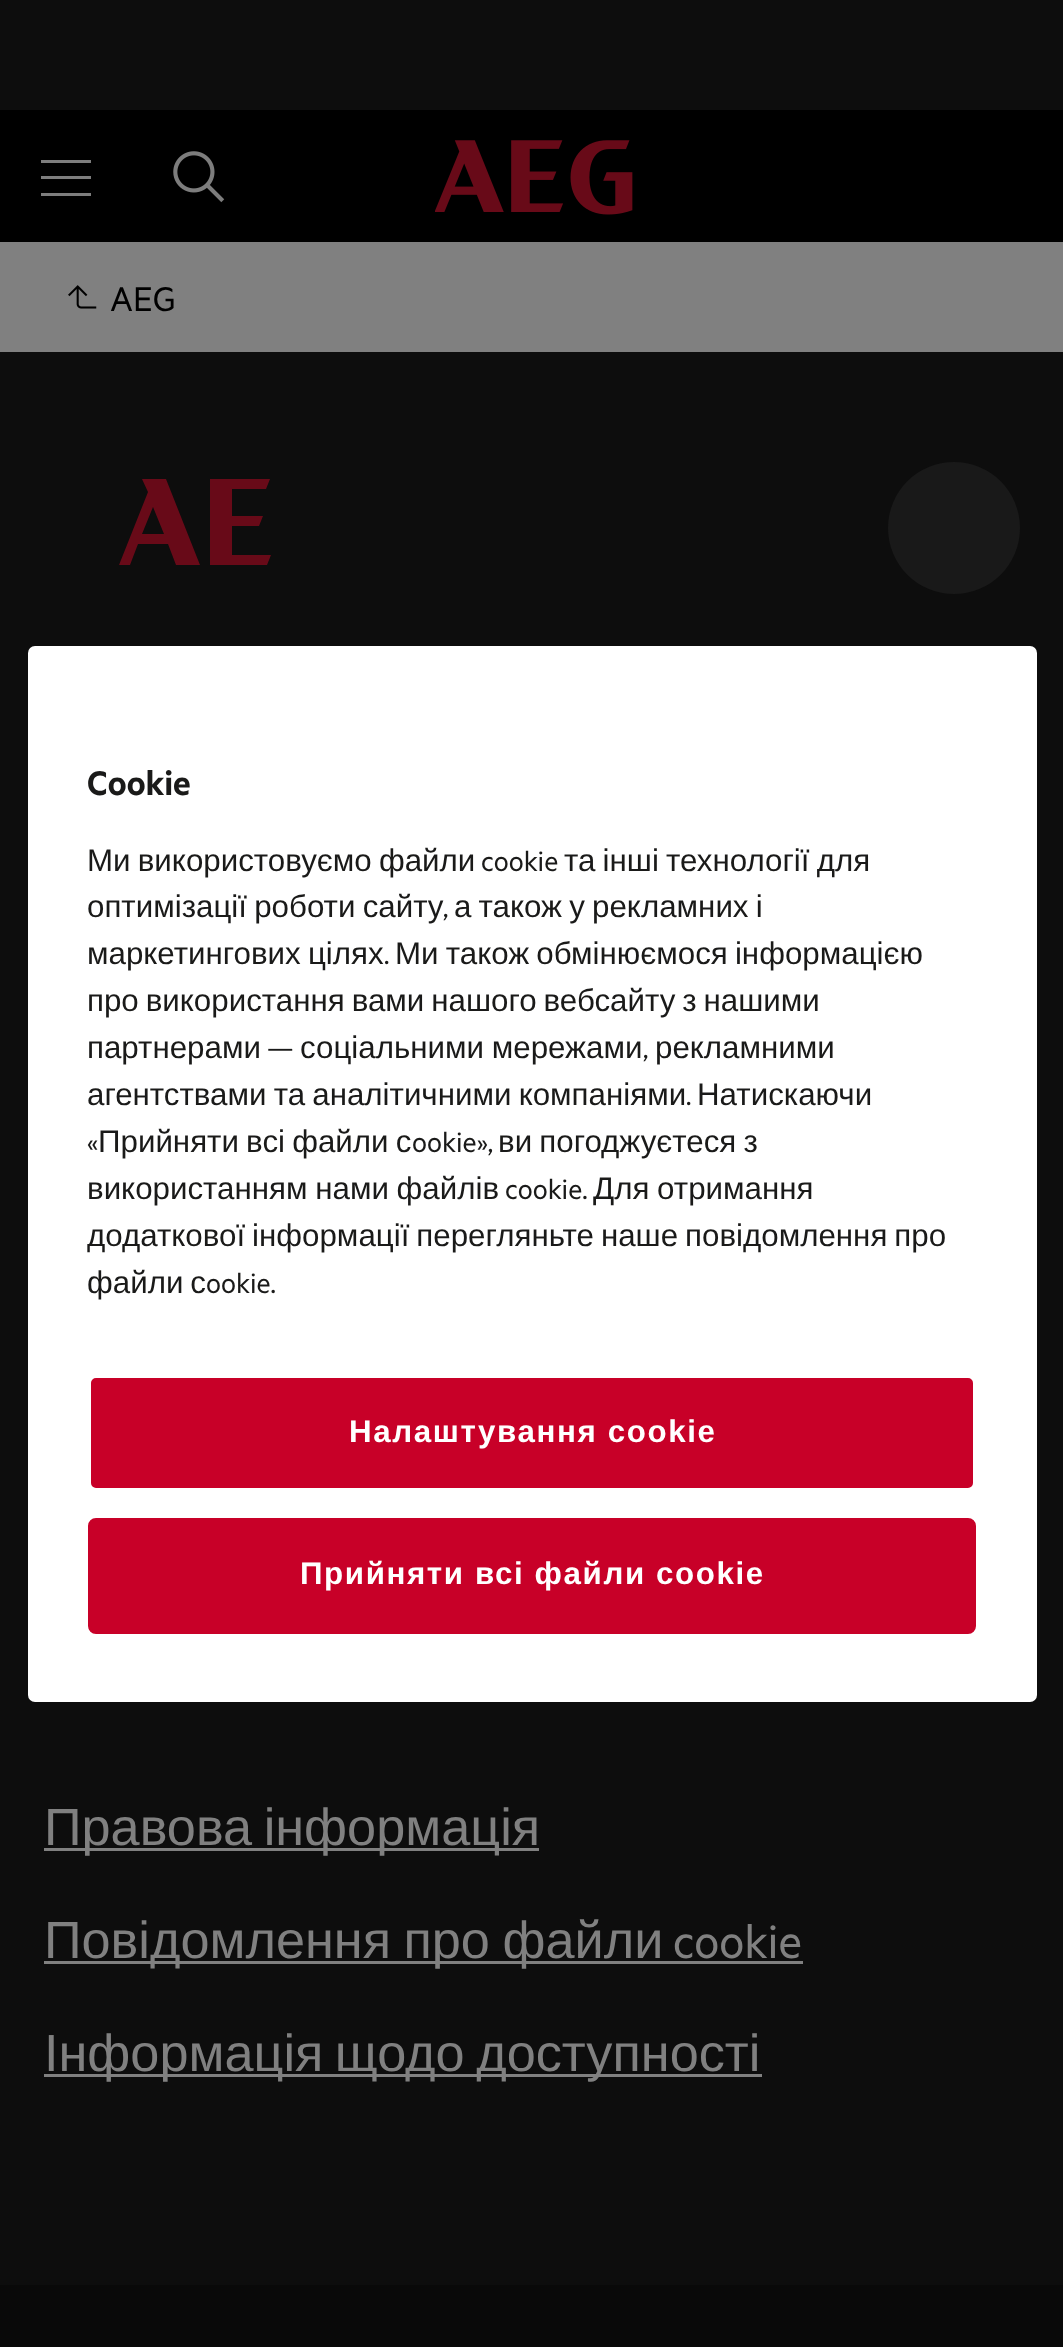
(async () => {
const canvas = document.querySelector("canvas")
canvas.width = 1063
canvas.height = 2347
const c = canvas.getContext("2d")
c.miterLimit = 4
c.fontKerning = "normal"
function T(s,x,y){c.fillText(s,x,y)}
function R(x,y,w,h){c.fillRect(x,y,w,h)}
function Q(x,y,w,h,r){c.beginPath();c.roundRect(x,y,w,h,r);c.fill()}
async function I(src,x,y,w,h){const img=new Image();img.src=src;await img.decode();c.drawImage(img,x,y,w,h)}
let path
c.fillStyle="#090909"
R(0,0,1063,2347)
c.fillStyle="#0d0d0d"
R(0,0,1063,110)
c.fillStyle="#000"
R(0,110,1063,132)
c.fillStyle="#7d7d7d"
R(41,176,50,3)
R(41,160,50,3)
R(41,193,50,3)
await I("1.png",173,151,52,52)
await I("2.png",435,140,198,75)
c.fillStyle="#808080"
R(0,242,1063,110)
await I("3.png",68,285,29,24)
c.font="38.5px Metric"
c.fillStyle="#000"
T("AEG",110,311)
c.fillStyle="#0d0d0d"
R(0,352,1063,1933)
c.fillStyle="#680a18"
path = new Path2D("M142 479l6 13l-29 73h11l8-21h30l8 21h24l-34-86zm0 55l11-27l11 27z")
c.fill(path)
path = new Path2D("M232 526h27l4-10h-31v-27h34l4-10h-60v86h57l4-10h-39z")
c.fill(path)
c.fillStyle="#191919"
c.beginPath()
c.arc(954,528,66,0,7)
c.fill()
c.fillStyle="#808080"
R(44,1848,495,3)
c.wordSpacing="-3px"
c.font="52.25px Liberation Sans"
T("Правова інформація",44,1845)
R(44,1961,759,3)
c.wordSpacing="-2px"
T("Повідомлення про файли",44,1958)
c.wordSpacing="0px"
c.font="52.25px Metric"
T("cookie",673,1958)
R(44,2074,718,3)
c.wordSpacing="-3px"
c.font="52.25px Liberation Sans"
T("Інформація щодо доступності",44,2071)
c.fillStyle="#fff"
Q(28,646,1009,1056,7)
c.wordSpacing="0px"
c.font="600 38.5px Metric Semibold"
c.fillStyle="#1a1a19"
T("Cookie",87,795)
c.wordSpacing="-1.5px"
c.font="31.3px Liberation Sans"
T("Ми використовуємо файли",87,871)
c.wordSpacing="0px"
c.font="31.3px Metric"
T("cookie",481,871)
c.wordSpacing="-1.5px"
c.font="31.3px Liberation Sans"
T("та інші технології для",564,871)
T("оптимізації роботи сайту",87,917)
c.wordSpacing="0px"
c.font="31.3px Metric"
T(",",443,917)
c.wordSpacing="-1.5px"
c.font="31.3px Liberation Sans"
T("а також у рекламних і",454,917)
T("маркетингових цілях",87,964)
c.wordSpacing="0px"
c.font="31.3px Metric"
T(".",384,964)
c.wordSpacing="-1.5px"
c.font="31.3px Liberation Sans"
T("Ми також обмінюємося інформацією",395,964)
c.wordSpacing="-1.75px"
T("про використання вами нашого вебсайту з нашими",87,1011)
c.wordSpacing="0px"
T("партнерами",87,1058)
c.font="31.3px Metric"
T("—",267,1058)
c.wordSpacing="-1px"
c.font="31.3px Liberation Sans"
T("соціальними мережами",300,1058)
c.wordSpacing="0px"
T("рекламними",655,1058)
c.font="31.3px Metric"
T(",",643,1058)
c.wordSpacing="-1.5px"
c.font="31.3px Liberation Sans"
T("агентствами та аналітичними компаніями",87,1105)
c.wordSpacing="0px"
c.font="31.3px Metric"
T(".",686,1105)
c.font="31.3px Liberation Sans"
T("Натискаючи",697,1105)
c.font="31.3px Metric"
T("«",87,1152)
c.wordSpacing="-1.5px"
c.font="31.3px Liberation Sans"
T("Прийняти всі файли с",98,1152)
c.wordSpacing="0px"
c.font="31.3px Metric"
T("ookie»,",412,1152)
c.wordSpacing="-1.5px"
c.font="31.3px Liberation Sans"
T("ви погоджуєтеся з",498,1152)
c.wordSpacing="-1px"
T("використанням нами файлів",87,1199)
c.wordSpacing="0px"
c.font="31.3px Metric"
T("cookie.",505,1199)
c.wordSpacing="-1px"
c.font="31.3px Liberation Sans"
T("Для отримання",593,1199)
c.wordSpacing="-1.75px"
T("додаткової інформації перегляньте наше повідомлення про",87,1246)
T("файли с",87,1293)
c.wordSpacing="0px"
c.font="31.3px Metric"
T("ookie.",206,1293)
c.fillStyle="#c80028"
c.beginPath()
c.roundRect(89.5,1376.5,885,113,6.5)
c.fill()
c.strokeStyle="#fff"
c.lineWidth=3
c.stroke()
c.letterSpacing="1.6px"
c.font="bold 31.3px Liberation Sans"
c.fillStyle="#fff"
T("Налаштування cookie",349,1442)
c.fillStyle="#c80028"
c.beginPath()
c.roundRect(89.5,1519.5,885,113,6.5)
c.fill()
c.strokeStyle="#c80028"
c.stroke()
c.fillStyle="#fff"
T("Прийняти всі файли сookie",300,1584)
})()
